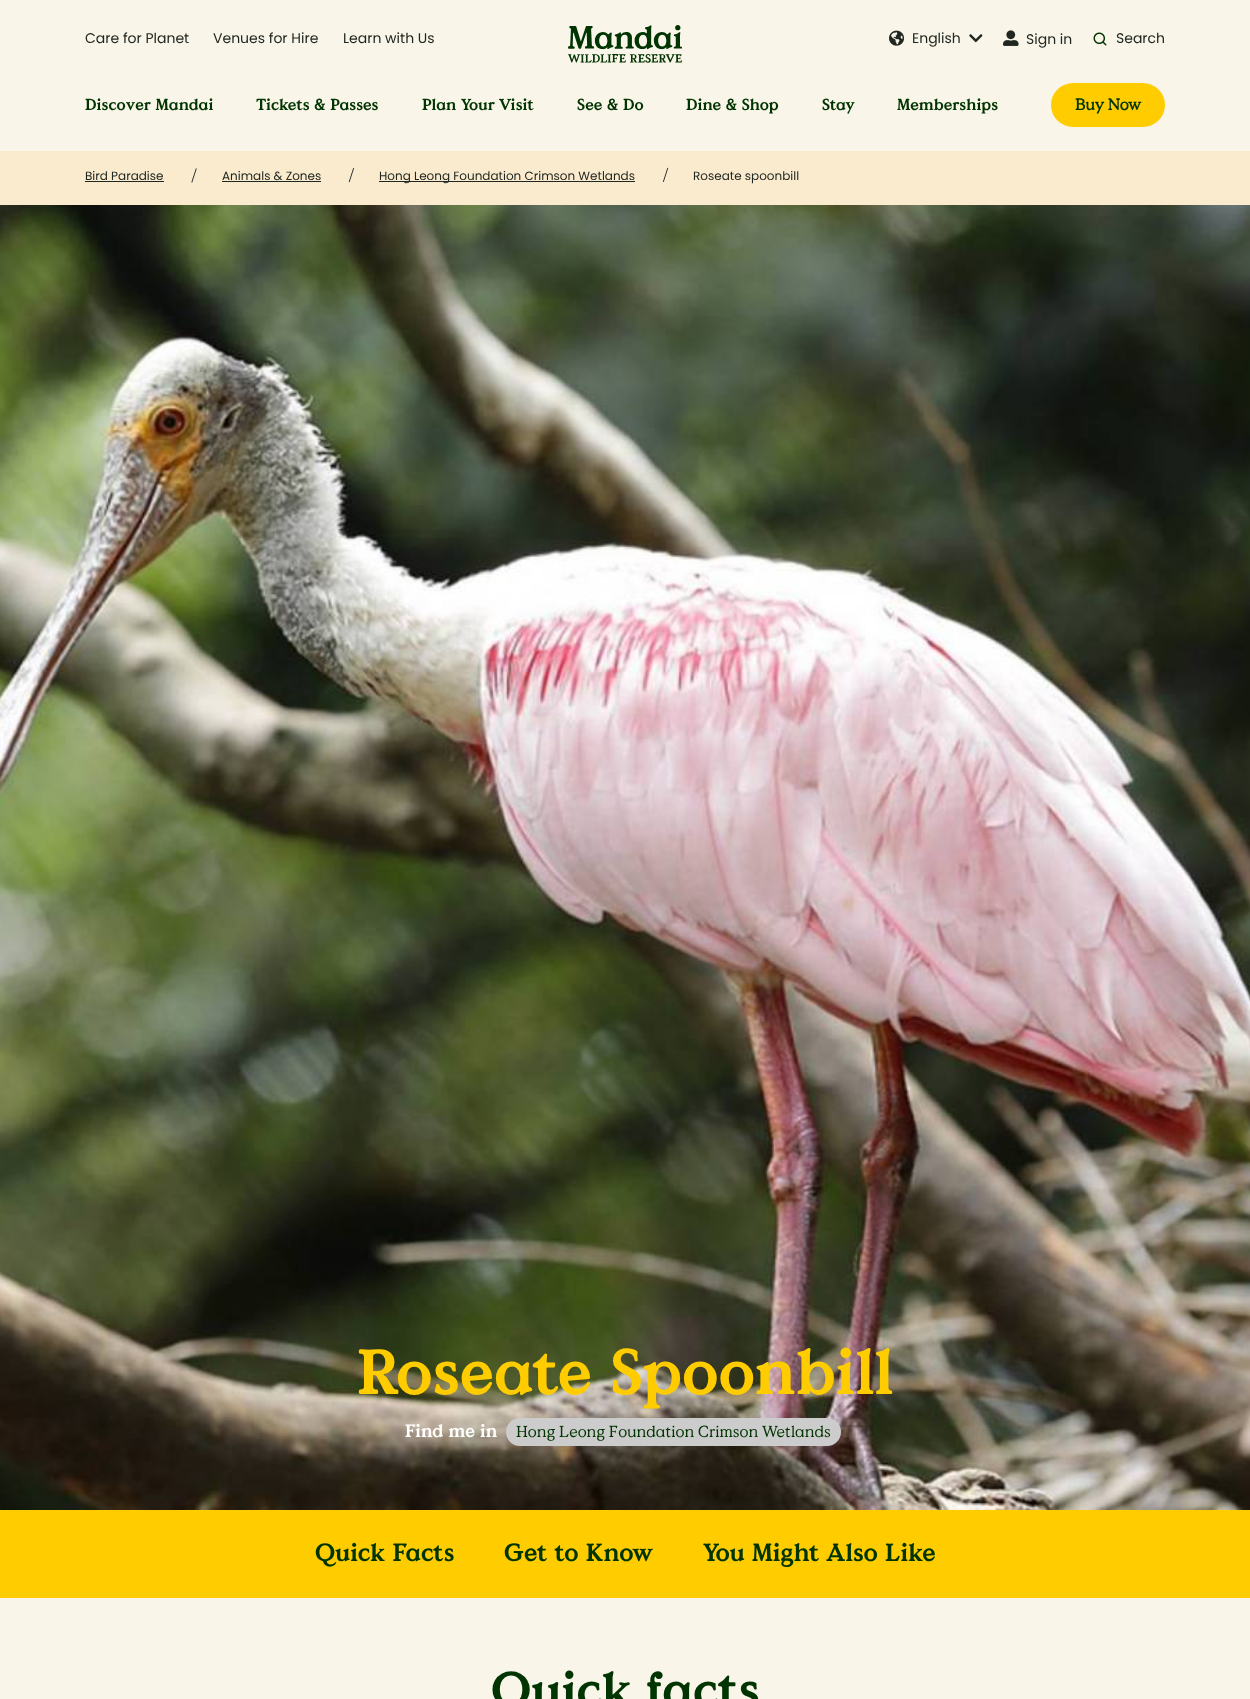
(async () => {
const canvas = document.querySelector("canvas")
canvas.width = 1250
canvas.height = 1699
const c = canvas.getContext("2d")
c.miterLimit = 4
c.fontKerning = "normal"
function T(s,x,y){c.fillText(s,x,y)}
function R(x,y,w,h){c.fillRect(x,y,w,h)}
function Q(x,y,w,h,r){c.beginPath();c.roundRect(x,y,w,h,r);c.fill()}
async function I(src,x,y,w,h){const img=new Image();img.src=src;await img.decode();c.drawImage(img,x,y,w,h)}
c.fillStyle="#faf5e9"
R(0,0,1250,1699)
c.font="14px Poppins"
c.fillStyle="#202721"
T("Care for Planet",85,43)
T("Venues for Hire",213,43)
T("Learn with Us",343,43)
await I("1.png",568,25,114,38)
await I("2.png",889,30,16,16)
T("English",912,43)
await I("3.png",969,34,14,9)
await I("4.png",1003,30,16,16)
T("Sign in",1026,44)
await I("5.png",1093,32,14,14)
T("Search",1116,43)
c.font="bold 16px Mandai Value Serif"
c.fillStyle="#003400"
T("Discover Mandai",85,110)
T("Tickets & Passes",256,110)
T("Plan Your Visit",422,110)
T("See & Do",577,110)
T("Dine & Shop",686,110)
T("Stay",822,110)
T("Memberships",897,110)
c.fillStyle="#fc0"
Q(1051,83,114,44,22)
c.font="bold 16px 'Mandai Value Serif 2'"
c.fillStyle="#003400"
T("Buy Now",1075,110)
c.fillStyle="#fbebce"
R(0,151,1250,54)
c.font="12px Poppins"
c.fillStyle="#202721"
T("Bird Paradise",85,180)
R(85,181,79,1)
await I("6.png",191,168,6,15)
T("Animals & Zones",222,180)
R(222,181,99,1)
await I("7.png",348,168,6,15)
R(379,181,256,1)
T("Hong Leong Foundation Crimson Wetlands",379,180)
await I("8.png",662,167,7,15)
T("Roseate spoonbill",693,180)
await I("9.png",0,205,1250,1305)
c.font="bold 64px Mandai Value Serif"
c.fillStyle="#fc0"
T("Roseate Spoonbill",357,1394)
c.font="bold 18px Mandai Value Serif"
c.fillStyle="#fff"
T("Find me in",405,1437)
c.fillStyle="#ccc"
Q(506,1418,335,28,14)
c.font="16px Mandai Value Serif"
c.fillStyle="#003400"
T("Hong Leong Foundation Crimson Wetlands",516,1437)
c.fillStyle="#fc0"
R(0,1510,1250,88)
c.font="bold 25px Mandai Value Serif"
c.fillStyle="#003400"
T("Quick Facts",315,1561)
T("Get to Know",504,1561)
T("You Might Also Like",703,1561)
c.font="bold 50px Mandai Value Serif"
T("Quick facts",491,1707)
})()
